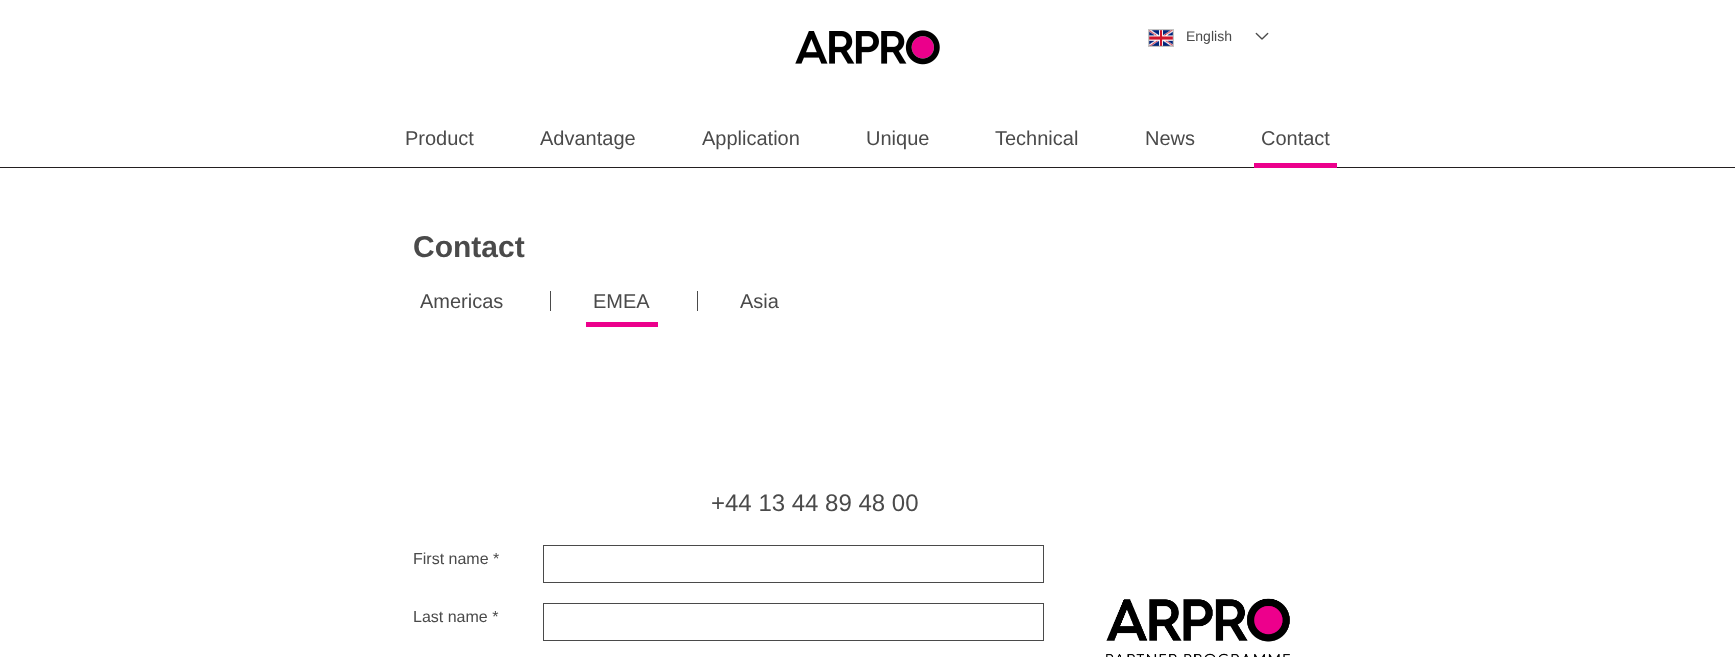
(async () => {
const canvas = document.querySelector("canvas")
canvas.width = 1735
canvas.height = 657
const c = canvas.getContext("2d")
c.miterLimit = 4
c.fontKerning = "normal"
function T(s,x,y){c.fillText(s,x,y)}
function R(x,y,w,h){c.fillRect(x,y,w,h)}
async function I(src,x,y,w,h){const img=new Image();img.src=src;await img.decode();c.drawImage(img,x,y,w,h)}
c.fillStyle="#fff"
R(0,0,1735,657)
c.fillStyle="#231f20"
R(0,167,1735,1)
await I("1.png",1149,30,24,16)
c.strokeStyle="#c4c4c4"
c.strokeRect(1148.5,29.5,25,17)
c.font="14px Liberation Sans"
c.fillStyle="#4a4a4a"
T("English",1186,41)
await I("2.png",1255,32,14,8)
c.font="20px Liberation Sans"
T("Product",405,145)
T("Advantage",540,145)
T("Application",702,145)
T("Unique",866,145)
T("Technical",995,145)
T("News",1145,145)
T("Contact",1261,145)
c.fillStyle="#ec008c"
R(1254,163,83,5)
await I("3.png",795,30,145,35)
c.font="bold 30px Liberation Sans"
c.fillStyle="#4a4a4a"
T("Contact",413,257)
c.font="20px Liberation Sans"
T("Americas",420,308)
R(550,291,1,20)
T("EMEA",593,308)
c.fillStyle="#ec008c"
R(586,322,72,5)
c.fillStyle="#4a4a4a"
R(697,291,1,20)
T("Asia",740,308)
c.font="24px Liberation Sans"
T("+44 13 44 89 48 00",711,511)
c.font="16px Liberation Sans"
T("First name *",413,564)
c.strokeStyle="#4a4a4a"
c.strokeRect(543.5,545.5,500,37)
T("Last name *",413,622)
c.strokeRect(543.5,603.5,500,37)
await I("4.png",1106,598,184,59)
})()
